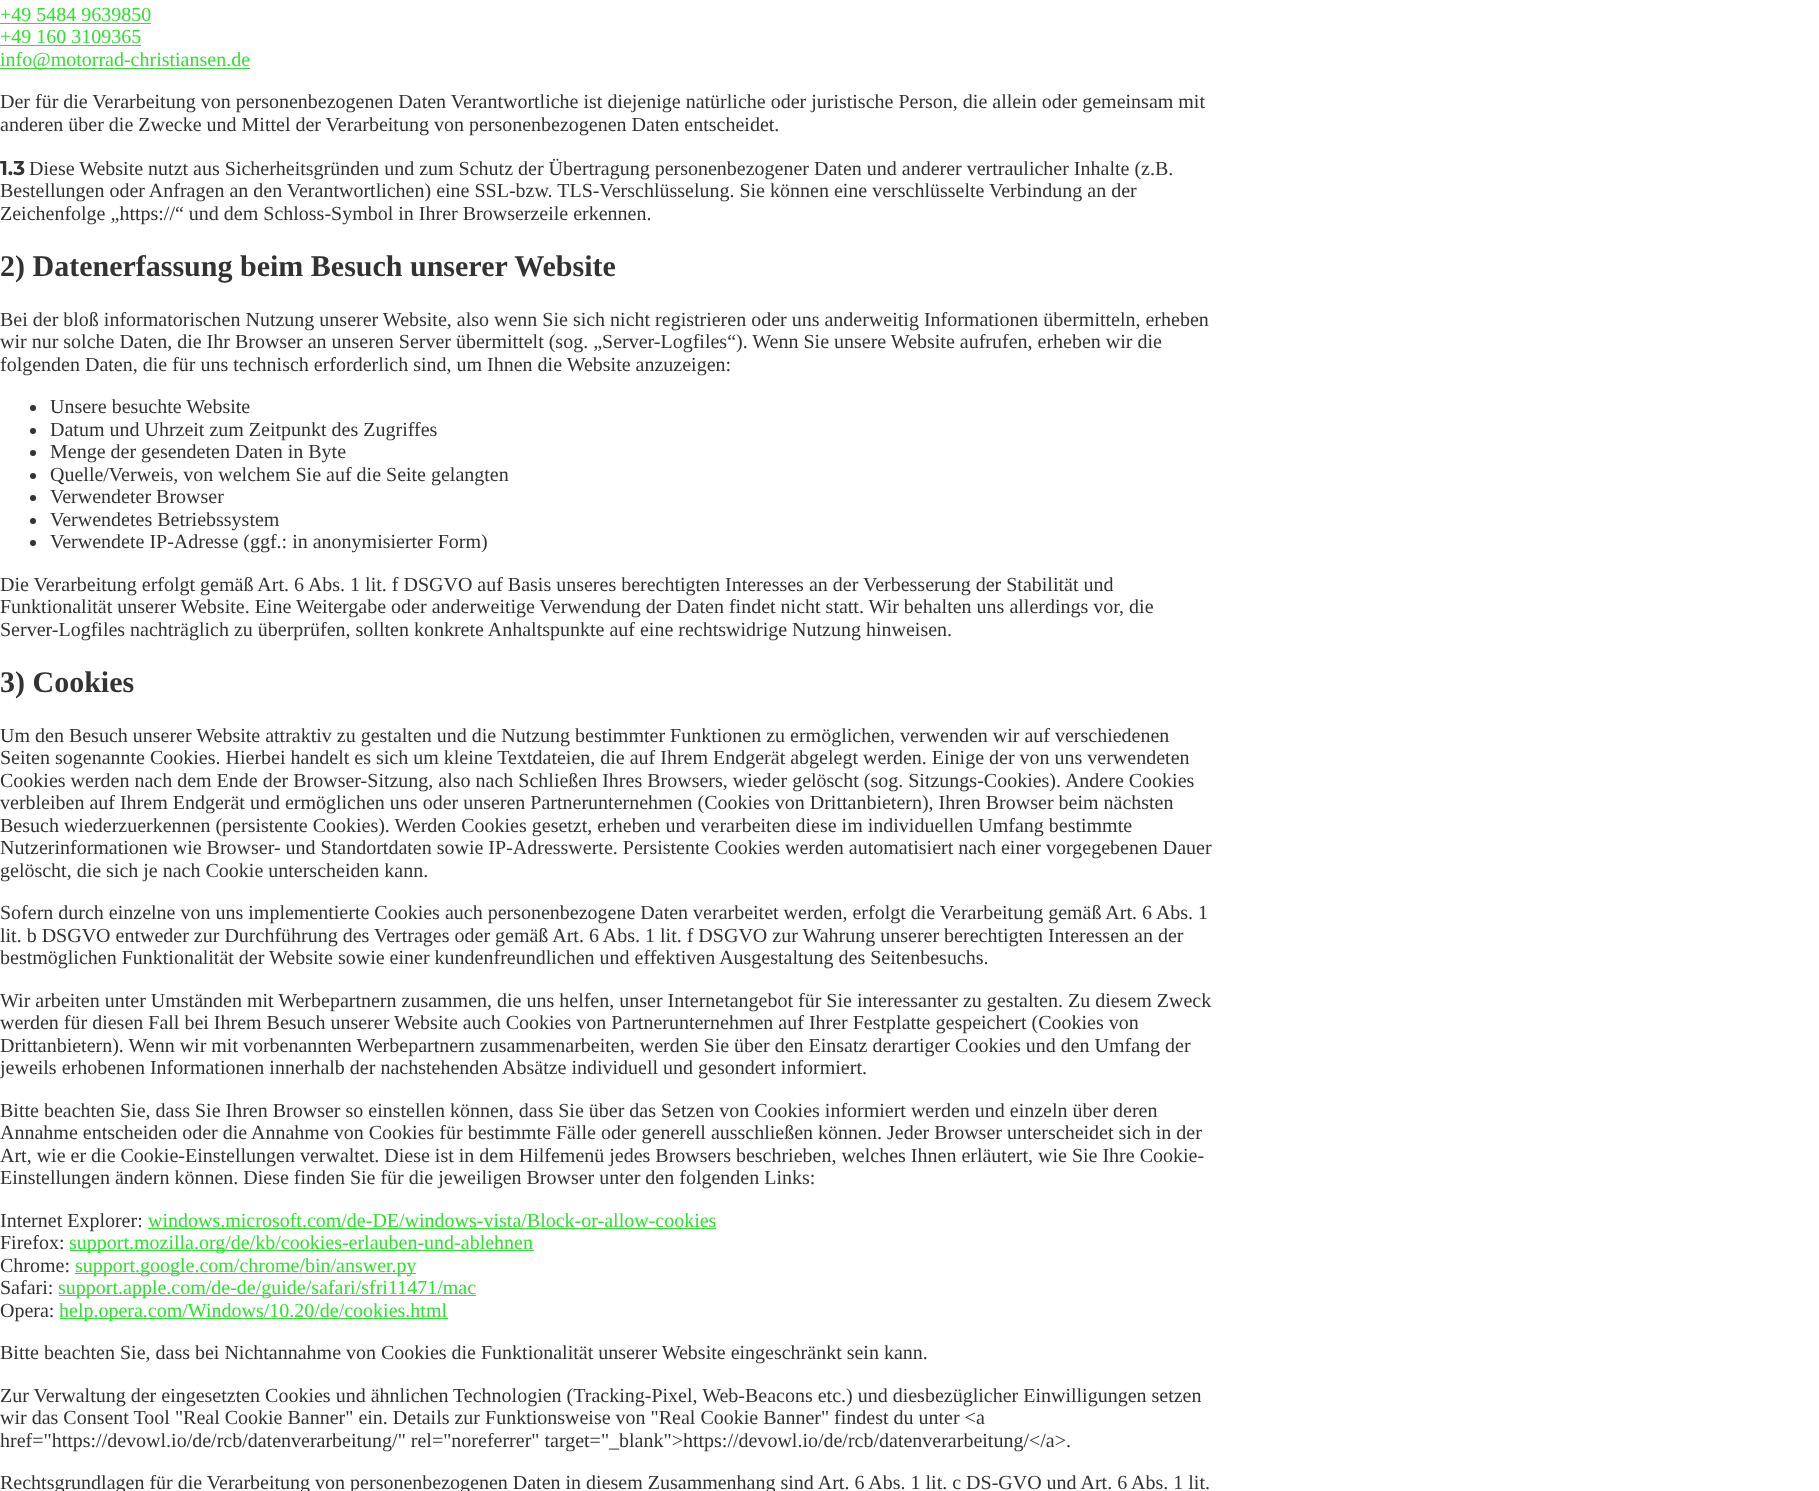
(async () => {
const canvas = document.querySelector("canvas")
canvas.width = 1819
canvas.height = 1491
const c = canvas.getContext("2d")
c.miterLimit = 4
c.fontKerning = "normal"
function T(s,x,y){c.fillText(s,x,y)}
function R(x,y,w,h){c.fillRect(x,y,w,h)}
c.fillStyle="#fff"
R(0,0,1819,1491)
c.font="20px Liberation Serif"
c.fillStyle="#31e032"
T("+49 5484 9639850",0,21)
R(0,23,151,1)
T("+49 160 3109365",0,43)
R(0,45,141,1)
R(0,68,250,1)
T("info@motorrad-christiansen.de",0,66)
c.fillStyle="#333"
T("Der für die Verarbeitung von personenbezogenen Daten Verantwortliche ist diejenige natürliche oder juristische Person, die allein oder gemeinsam mit",0,108)
T("anderen über die Zwecke und Mittel der Verarbeitung von personenbezogenen Daten entscheidet.",0,131)
c.font="bold 20px Montserrat"
T("1.3",0,175)
c.font="20px Liberation Serif"
T("Diese Website nutzt aus Sicherheitsgründen und zum Schutz der Übertragung personenbezogener Daten und anderer vertraulicher Inhalte (z.B.",29,175)
T("Bestellungen oder Anfragen an den Verantwortlichen) eine SSL-bzw. TLS-Verschlüsselung. Sie können eine verschlüsselte Verbindung an der",0,197)
T("Zeichenfolge „https://“ und dem Schloss-Symbol in Ihrer Browserzeile erkennen.",0,220)
c.font="bold 30px Liberation Serif"
T("2) Datenerfassung beim Besuch unserer Website",0,276)
c.font="20px Liberation Serif"
T("Bei der bloß informatorischen Nutzung unserer Website, also wenn Sie sich nicht registrieren oder uns anderweitig Informationen übermitteln, erheben",0,326)
T("wir nur solche Daten, die Ihr Browser an unseren Server übermittelt (sog. „Server-Logfiles“). Wenn Sie unsere Website aufrufen, erheben wir die",0,348)
T("folgenden Daten, die für uns technisch erforderlich sind, um Ihnen die Website anzuzeigen:",0,371)
c.beginPath()
c.arc(33,408,3,0,7)
c.fill()
T("Unsere besuchte Website",50,413)
c.beginPath()
c.arc(33,431,3,0,7)
c.fill()
T("Datum und Uhrzeit zum Zeitpunkt des Zugriffes",50,436)
c.beginPath()
c.arc(33,453,3,0,7)
c.fill()
T("Menge der gesendeten Daten in Byte",50,458)
c.beginPath()
c.arc(33,476,3,0,7)
c.fill()
T("Quelle/Verweis, von welchem Sie auf die Seite gelangten",50,481)
c.beginPath()
c.arc(33,498,3,0,7)
c.fill()
T("Verwendeter Browser",50,503)
c.beginPath()
c.arc(33,521,3,0,7)
c.fill()
T("Verwendetes Betriebssystem",50,526)
c.beginPath()
c.arc(33,543,3,0,7)
c.fill()
T("Verwendete IP-Adresse (ggf.: in anonymisierter Form)",50,548)
T("Die Verarbeitung erfolgt gemäß Art. 6 Abs. 1 lit. f DSGVO auf Basis unseres berechtigten Interesses an der Verbesserung der Stabilität und",0,591)
T("Funktionalität unserer Website. Eine Weitergabe oder anderweitige Verwendung der Daten findet nicht statt. Wir behalten uns allerdings vor, die",0,613)
T("Server-Logfiles nachträglich zu überprüfen, sollten konkrete Anhaltspunkte auf eine rechtswidrige Nutzung hinweisen.",0,636)
c.font="bold 30px Liberation Serif"
T("3) Cookies",0,692)
c.font="20px Liberation Serif"
T("Um den Besuch unserer Website attraktiv zu gestalten und die Nutzung bestimmter Funktionen zu ermöglichen, verwenden wir auf verschiedenen",0,742)
T("Seiten sogenannte Cookies. Hierbei handelt es sich um kleine Textdateien, die auf Ihrem Endgerät abgelegt werden. Einige der von uns verwendeten",0,764)
T("Cookies werden nach dem Ende der Browser-Sitzung, also nach Schließen Ihres Browsers, wieder gelöscht (sog. Sitzungs-Cookies). Andere Cookies",0,787)
T("verbleiben auf Ihrem Endgerät und ermöglichen uns oder unseren Partnerunternehmen (Cookies von Drittanbietern), Ihren Browser beim nächsten",0,809)
T("Besuch wiederzuerkennen (persistente Cookies). Werden Cookies gesetzt, erheben und verarbeiten diese im individuellen Umfang bestimmte",0,832)
T("Nutzerinformationen wie Browser- und Standortdaten sowie IP-Adresswerte. Persistente Cookies werden automatisiert nach einer vorgegebenen Dauer",0,854)
T("gelöscht, die sich je nach Cookie unterscheiden kann.",0,877)
T("Sofern durch einzelne von uns implementierte Cookies auch personenbezogene Daten verarbeitet werden, erfolgt die Verarbeitung gemäß Art. 6 Abs. 1",0,919)
T("lit. b DSGVO entweder zur Durchführung des Vertrages oder gemäß Art. 6 Abs. 1 lit. f DSGVO zur Wahrung unserer berechtigten Interessen an der",0,942)
T("bestmöglichen Funktionalität der Website sowie einer kundenfreundlichen und effektiven Ausgestaltung des Seitenbesuchs.",0,964)
T("Wir arbeiten unter Umständen mit Werbepartnern zusammen, die uns helfen, unser Internetangebot für Sie interessanter zu gestalten. Zu diesem Zweck",0,1007)
T("werden für diesen Fall bei Ihrem Besuch unserer Website auch Cookies von Partnerunternehmen auf Ihrer Festplatte gespeichert (Cookies von",0,1029)
T("Drittanbietern). Wenn wir mit vorbenannten Werbepartnern zusammenarbeiten, werden Sie über den Einsatz derartiger Cookies und den Umfang der",0,1052)
T("jeweils erhobenen Informationen innerhalb der nachstehenden Absätze individuell und gesondert informiert.",0,1074)
T("Bitte beachten Sie, dass Sie Ihren Browser so einstellen können, dass Sie über das Setzen von Cookies informiert werden und einzeln über deren",0,1117)
T("Annahme entscheiden oder die Annahme von Cookies für bestimmte Fälle oder generell ausschließen können. Jeder Browser unterscheidet sich in der",0,1139)
T("Art, wie er die Cookie-Einstellungen verwaltet. Diese ist in dem Hilfemenü jedes Browsers beschrieben, welches Ihnen erläutert, wie Sie Ihre Cookie-",0,1162)
T("Einstellungen ändern können. Diese finden Sie für die jeweiligen Browser unter den folgenden Links:",0,1184)
T("Internet Explorer:",0,1227)
c.fillStyle="#31e032"
T("windows.microsoft.com/de-DE/windows-vista/Block-or-allow-cookies",148,1227)
R(148,1228,568,1)
c.fillStyle="#333"
T("Firefox:",0,1249)
c.fillStyle="#31e032"
R(70,1250,464,1)
T("support.mozilla.org/de/kb/cookies-erlauben-und-ablehnen",69,1249)
c.fillStyle="#333"
T("Chrome:",0,1272)
c.fillStyle="#31e032"
R(75,1273,341,1)
T("support.google.com/chrome/bin/answer.py",75,1272)
c.fillStyle="#333"
T("Safari:",0,1294)
c.fillStyle="#31e032"
R(59,1295,417,1)
T("support.apple.com/de-de/guide/safari/sfri11471/mac",58,1294)
c.fillStyle="#333"
T("Opera:",0,1317)
c.fillStyle="#31e032"
R(60,1318,388,1)
T("help.opera.com/Windows/10.20/de/cookies.html",59,1317)
c.fillStyle="#333"
T("Bitte beachten Sie, dass bei Nichtannahme von Cookies die Funktionalität unserer Website eingeschränkt sein kann.",0,1359)
T("Zur Verwaltung der eingesetzten Cookies und ähnlichen Technologien (Tracking-Pixel, Web-Beacons etc.) und diesbezüglicher Einwilligungen setzen",0,1402)
T("wir das Consent Tool \"Real Cookie Banner\" ein. Details zur Funktionsweise von \"Real Cookie Banner\" findest du unter <a",0,1424)
T("href=\"https://devowl.io/de/rcb/datenverarbeitung/\" rel=\"noreferrer\" target=\"_blank\">https://devowl.io/de/rcb/datenverarbeitung/<\/a>.",0,1447)
T("Rechtsgrundlagen für die Verarbeitung von personenbezogenen Daten in diesem Zusammenhang sind Art. 6 Abs. 1 lit. c DS-GVO und Art. 6 Abs. 1 lit.",0,1489)
})()
